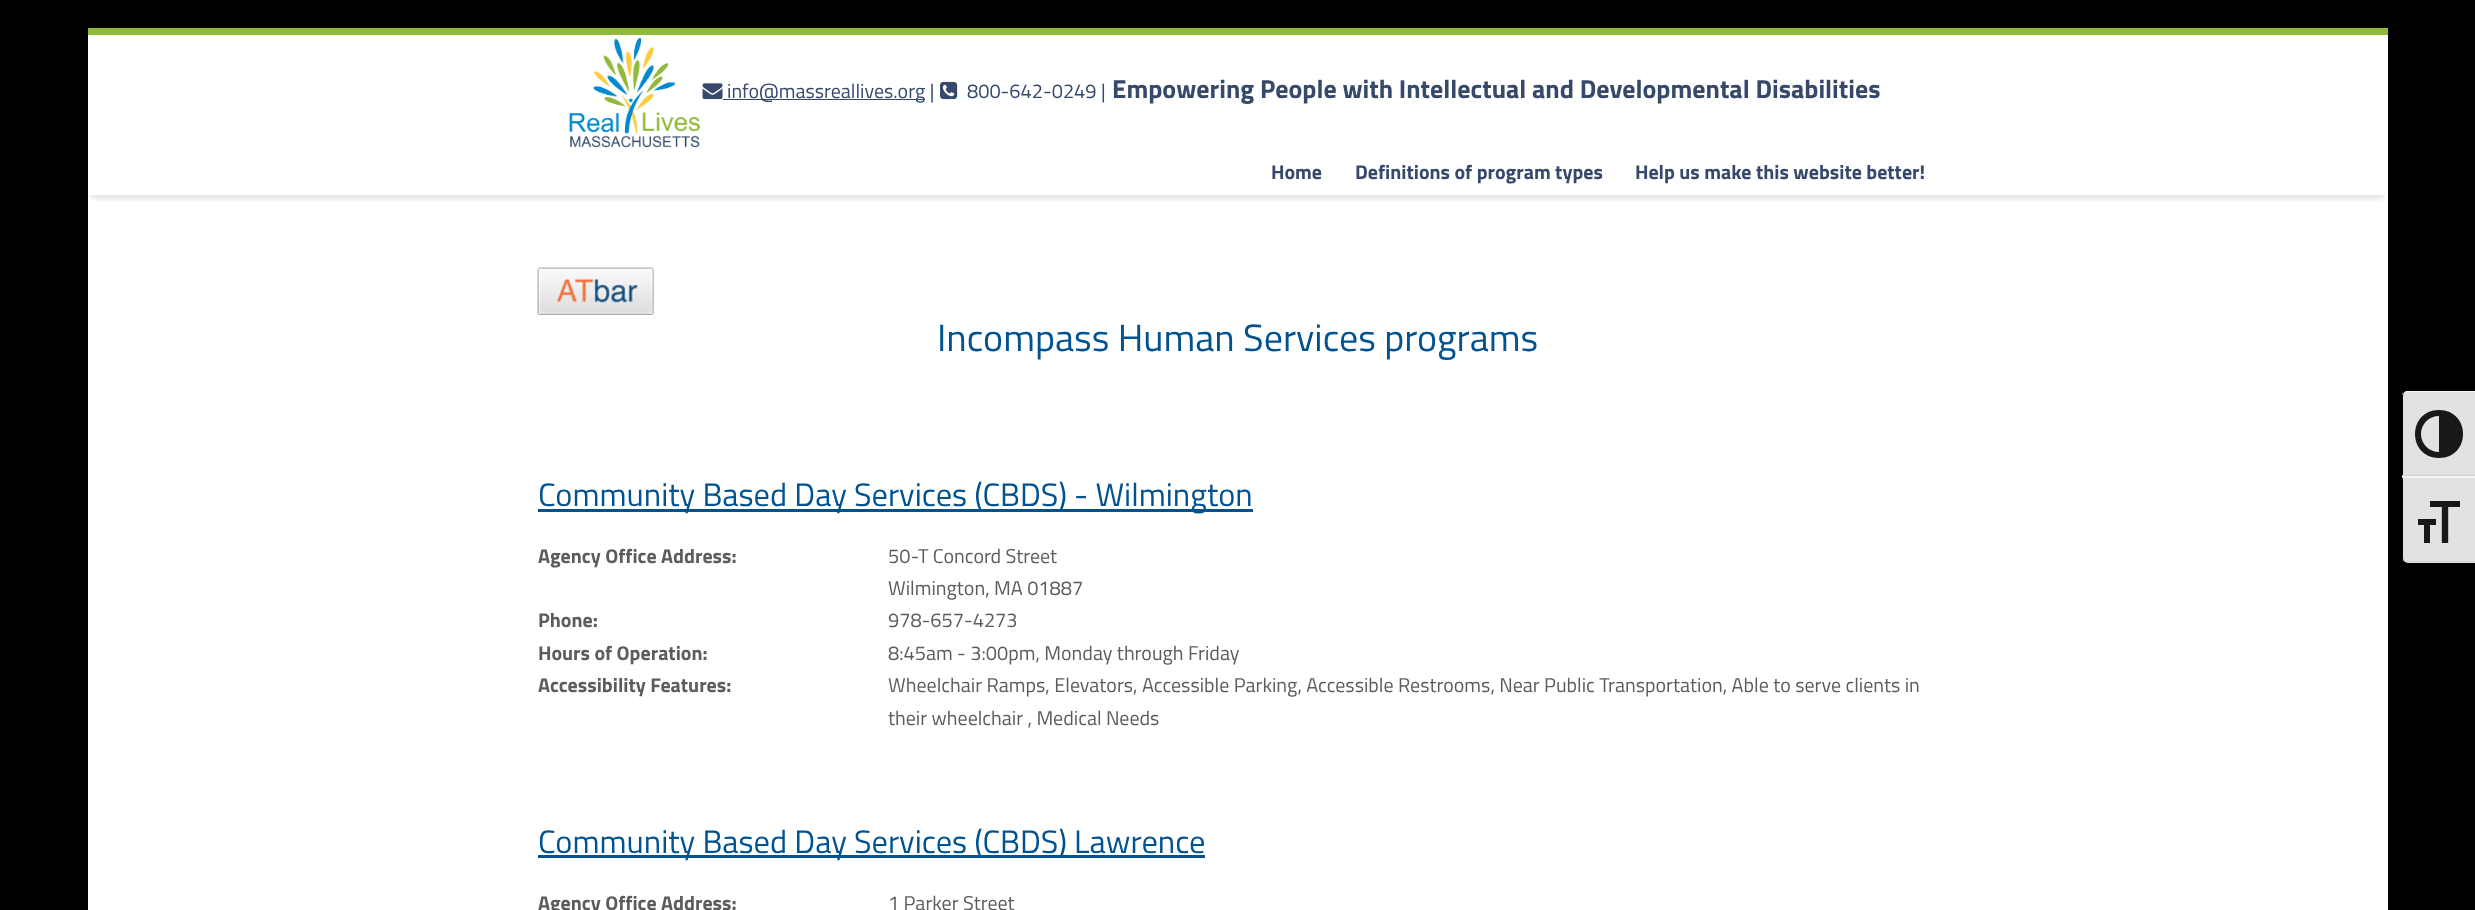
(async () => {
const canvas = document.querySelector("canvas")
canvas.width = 2475
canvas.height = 910
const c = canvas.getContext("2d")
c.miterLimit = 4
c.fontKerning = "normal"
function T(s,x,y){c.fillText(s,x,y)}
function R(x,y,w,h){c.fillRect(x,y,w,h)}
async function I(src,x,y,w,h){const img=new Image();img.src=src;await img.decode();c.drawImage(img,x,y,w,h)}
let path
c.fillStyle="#000"
R(0,0,2475,910)
c.fillStyle="#fff"
R(88,35,2300,875)
c.save()
c.beginPath()
c.rect(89,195,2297,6)
c.clip()
c.fillStyle="#0000001a"
c.filter="blur(2.5px)"
c.beginPath()
c.rect(91,39,2293,160)
c.fill()
c.filter="none"
c.restore()
c.fillStyle="#91b93a"
R(88,28,2300,7)
await I("1.png",569,37,132,111)
await I("2.png",702,83,21,17)
c.fillStyle="#36496b"
R(723,99,202,1)
c.font="20px Titillium Web"
T("info@massreallives.org |",727,98)
await I("3.png",940,81,18,19)
T("800-642-0249 |",967,98)
c.font="bold 26px Titillium Web"
T("Empowering People with Intellectual and Developmental Disabilities",1112,98)
c.font="bold 20px Titillium Web"
T("Home",1271,179)
T("Definitions of program types",1355,179)
T("Help us make this website better!",1635,179)
await I("4.png",537,267,117,48)
c.font="38px Titillium Web"
c.fillStyle="#005291"
T("Incompass Human Services programs",937,351)
R(538,509,715,3)
c.font="32.4px Titillium Web"
T("Community Based Day Services (CBDS) - Wilmington",538,506)
c.font="bold 20px Titillium Web"
c.fillStyle="#5a5c5e"
T("Agency Office Address:",538,563)
c.font="20px Titillium Web"
T("50-T Concord Street",888,563)
T("Wilmington, MA 01887",888,595)
c.font="bold 20px Titillium Web"
T("Phone:",538,627)
c.font="20px Titillium Web"
T("978-657-4273",888,627)
c.font="bold 20px Titillium Web"
T("Hours of Operation:",538,660)
c.font="20px Titillium Web"
T("8:45am - 3:00pm, Monday through Friday",888,660)
c.font="bold 20px Titillium Web"
T("Accessibility Features:",538,692)
c.font="20px Titillium Web"
T("Wheelchair Ramps, Elevators, Accessible Parking, Accessible Restrooms, Near Public Transportation, Able to serve clients in",888,692)
T("their wheelchair , Medical Needs",888,725)
c.fillStyle="#005291"
R(538,855,667,3)
c.font="32.4px Titillium Web"
T("Community Based Day Services (CBDS) Lawrence",538,853)
c.font="bold 20px Titillium Web"
c.fillStyle="#5a5c5e"
T("Agency Office Address:",538,910)
c.font="20px Titillium Web"
T("1 Parker Street",888,910)
c.fillStyle="#e2e2e2"
c.beginPath()
c.roundRect(2403,391,72,85,[5,0,0,0])
c.fill()
c.fillStyle="#f5f5f5"
path = new Path2D("M2408 392c-2 0-5 1-6 3v-1c1-1 3-2 4-3h69v1z")
c.fill(path)
c.fillStyle="#d2d2d2"
R(2402,475,73,1)
c.fillStyle="#181818"
path = new Path2D("M2439 410c-32 0-32 48 0 48c32 0 32-48 0-48zm-18 24c0-10 8-18 18-18v36c-10 0-18-8-18-18z")
c.fill(path)
c.fillStyle="#e2e2e2"
c.beginPath()
c.roundRect(2403,476,72,87,[0,0,0,5])
c.fill()
c.fillStyle="#f5f5f5"
R(2402,476,73,2)
c.fillStyle="#d2d2d2"
path = new Path2D("M2402 559c1 1 4 2 6 2h67v1h-67c-2 0-5-1-6-3z")
c.fill(path)
await I("5.png",2418,501,42,42)
})()
